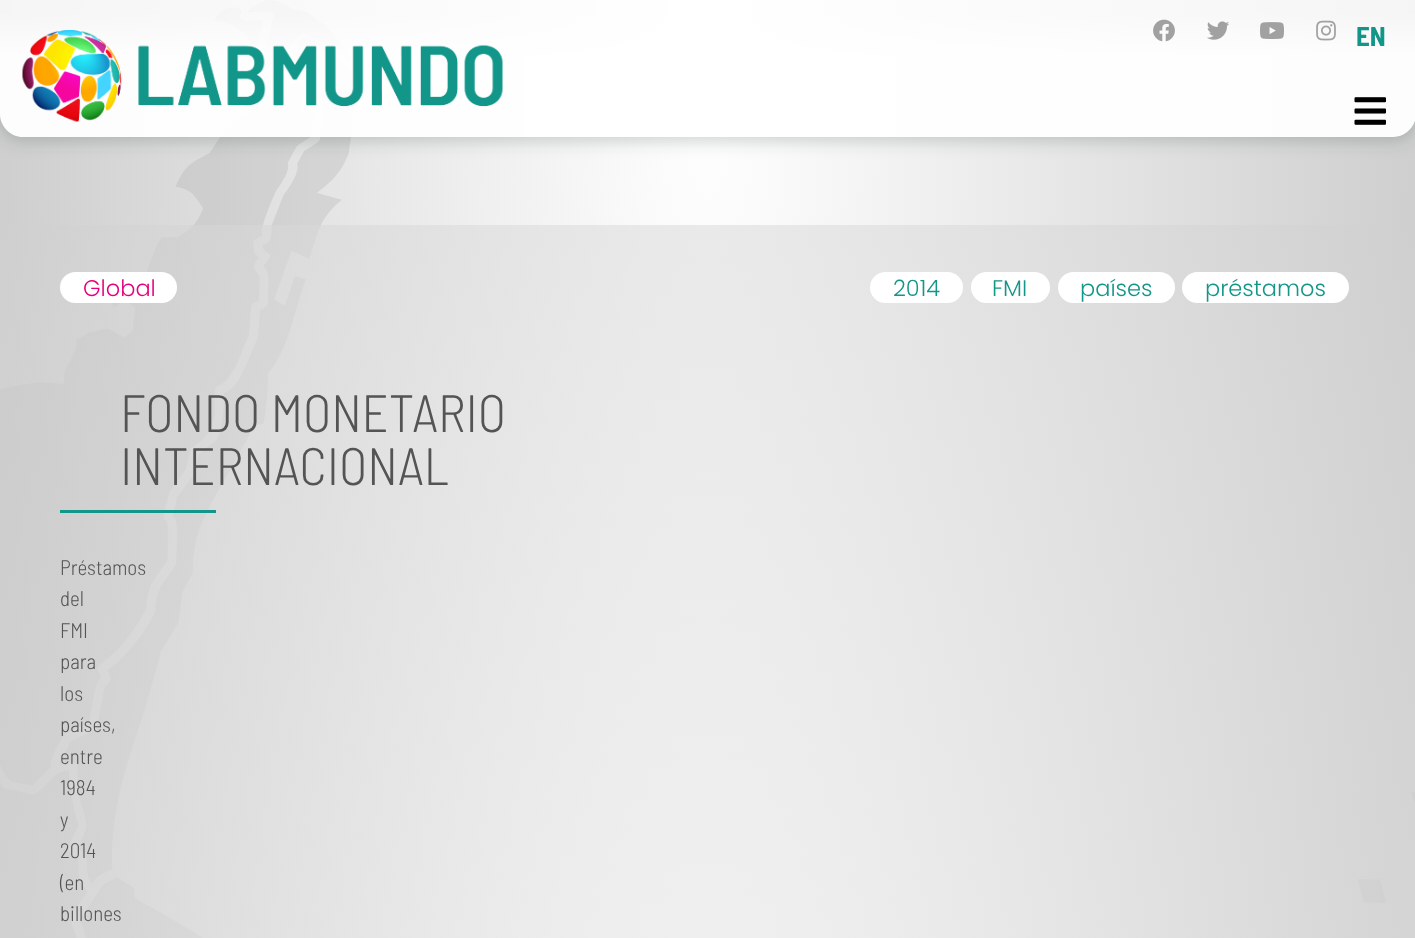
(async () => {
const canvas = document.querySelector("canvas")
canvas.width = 1415
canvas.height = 938
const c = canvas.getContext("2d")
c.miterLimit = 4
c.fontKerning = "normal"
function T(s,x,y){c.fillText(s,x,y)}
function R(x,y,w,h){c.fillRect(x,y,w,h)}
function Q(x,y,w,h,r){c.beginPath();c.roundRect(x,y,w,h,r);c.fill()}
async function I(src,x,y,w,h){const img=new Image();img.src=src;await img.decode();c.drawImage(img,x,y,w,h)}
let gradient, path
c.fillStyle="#fff"
R(0,0,1415,938)
gradient = c.createRadialGradient(708,0,0,708,0,1001)
gradient.addColorStop(0,"#fff")
gradient.addColorStop(.7,"#cfcfcf")
c.fillStyle = gradient
c.beginPath()
c.rect(0,0,1415,938)
c.save()
c.clip()
c.scale(1,4879 / 1001)
c.fillRect(0,0,1415,193)
c.restore()
await I("7.png",0,0,1415,938)
c.save()
path = new Path2D("M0 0h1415v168h-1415zm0 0h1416v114c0 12.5-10.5 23-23 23h-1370c-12.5 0-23-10.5-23-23z")
c.clip(path,"evenodd")
c.fillStyle="#01191a33"
c.filter="blur(9px)"
c.beginPath()
c.roundRect(0,3,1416,137,23)
c.fill()
c.filter="none"
c.restore()
gradient = c.createLinearGradient(708,0,708,137)
gradient.addColorStop(.1,"#ffffffcc")
gradient.addColorStop(.4,"#fffffff5")
c.fillStyle = gradient
path = new Path2D("M0 0h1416v114c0 12.5-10.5 23-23 23h-1370c-12.5 0-23-10.5-23-23z")
c.fill(path)
await I("1.png",22,30,481,92)
await I("2.png",1153,19,22,23)
await I("3.png",1207,21,22,19)
await I("4.png",1260,22,24,17)
await I("5.png",1316,20,20,21)
c.font="bold 27px Barlow Semi Condensed"
c.fillStyle="#119689"
T("EN",1356,46)
await I("6.png",1354,97,32,28)
gradient = c.createRadialGradient(708,811.76,0,708,811.76,1001)
gradient.addColorStop(0,"#ffffff96")
gradient.addColorStop(1,"#cfcfcf9e")
c.fillStyle = gradient
c.beginPath()
c.roundRect(0,225,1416,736,23)
c.save()
c.clip()
c.scale(1,2174 / 1001)
c.fillRect(0,0,1415,432)
c.restore()
c.fillStyle="#fff"
Q(60,272,117,31,15.5)
c.font="300 22.5px Poppins"
c.fillStyle="#e6007e"
T("Global",83,296)
c.fillStyle="#fff"
Q(870,272,93,31,15.5)
c.fillStyle="#119689"
T("2014",893,296)
c.fillStyle="#fff"
Q(971,272,79,31,15.5)
c.fillStyle="#119689"
T("FMI",992,296)
c.fillStyle="#fff"
Q(1058,272,117,31,15.5)
c.fillStyle="#119689"
T("países",1080,296)
c.fillStyle="#fff"
Q(1182,272,167,31,15.5)
c.fillStyle="#119689"
T("préstamos",1205,296)
c.font="300 52.5px Barlow Semi Condensed"
c.fillStyle="#545454"
T("FONDO MONETARIO",120,432)
T("INTERNACIONAL",120,485)
c.fillStyle="#119689"
R(60,510,156,3)
c.font="300 21px Barlow Semi Condensed"
c.fillStyle="#545454"
T("Préstamos",60,575)
T("del",60,606)
T("FMI",60,638)
T("para",60,669)
T("los",60,701)
T("países,",60,732)
T("entre",60,764)
T("1984",60,795)
T("y",60,827)
T("2014",60,858)
T("(en",60,890)
T("billones",60,921)
})()
